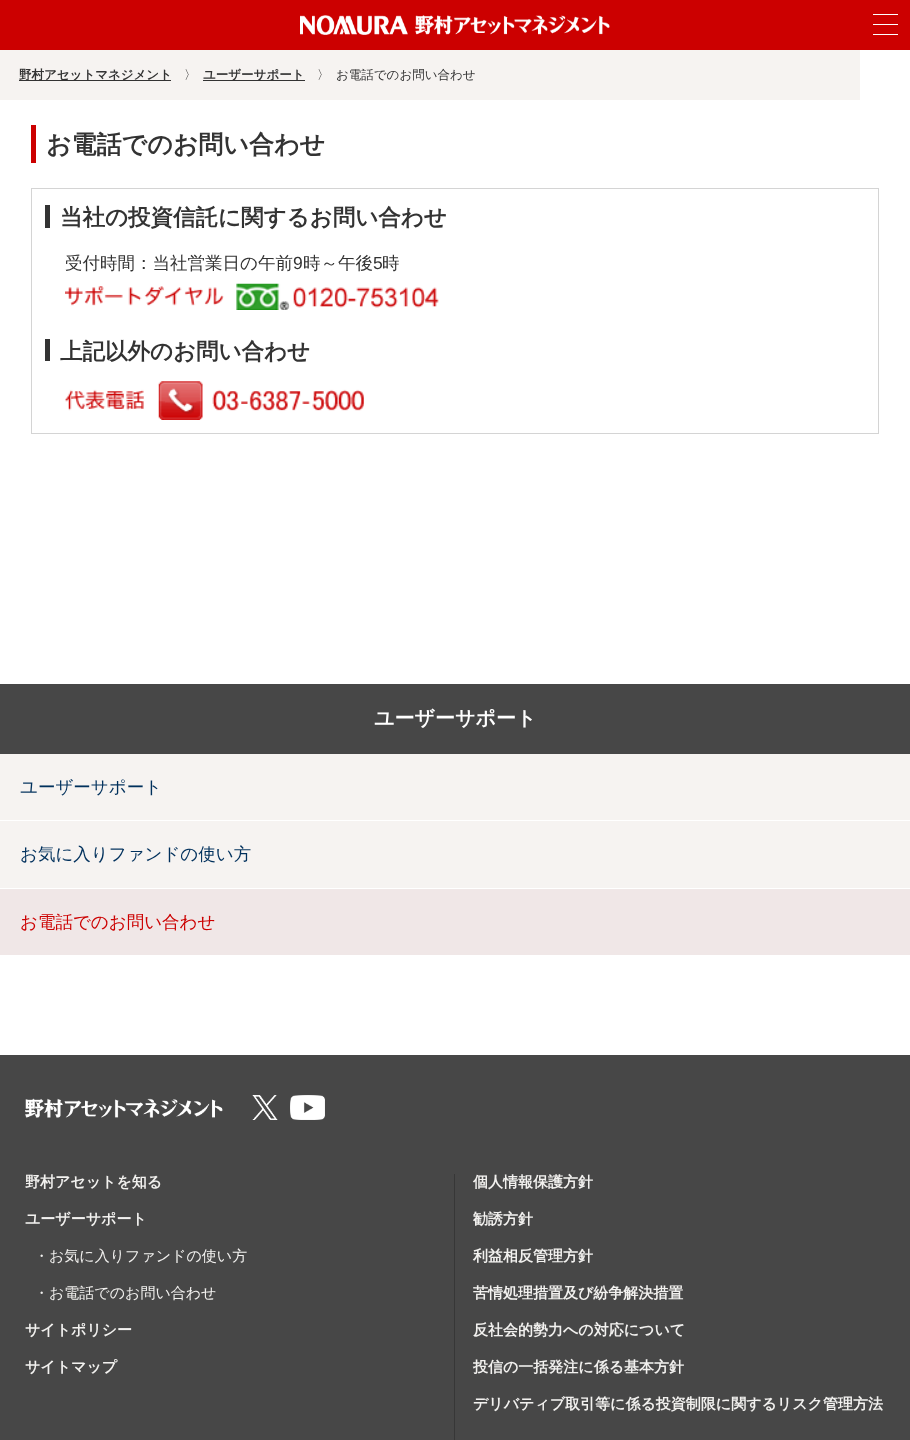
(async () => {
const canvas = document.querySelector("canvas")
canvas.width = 910
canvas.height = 1440
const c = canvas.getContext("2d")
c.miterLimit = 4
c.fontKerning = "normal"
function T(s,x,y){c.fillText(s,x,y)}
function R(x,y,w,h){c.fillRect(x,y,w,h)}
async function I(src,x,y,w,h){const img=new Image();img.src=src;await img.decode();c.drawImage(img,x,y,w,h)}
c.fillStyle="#fff"
R(0,0,910,1440)
c.fillStyle="#c00"
R(0,0,910,50)
await I("1.png",300,15,310,20)
c.fillStyle="#fff"
R(873,14,25,1)
R(873,24,25,1)
R(873,34,25,1)
c.fillStyle="#f6f3f1"
R(0,50,860,50)
c.fillStyle="#333"
R(19,80,152,1)
c.font="bold 12.5px WenQuanYi Zen Hei"
T("野村アセットマネジメント",19,79)
c.font="500 12.5px WenQuanYi Zen Hei"
T("〉",184,79)
R(203,80,102,1)
c.font="bold 12.5px WenQuanYi Zen Hei"
T("ユーザーサポート",203,79)
c.font="500 12.5px WenQuanYi Zen Hei"
T("〉",317,79)
T("お電話でのお問い合わせ",336,79)
c.fillStyle="#c00"
R(31,125,5,38)
c.font="bold 25px WenQuanYi Zen Hei"
c.fillStyle="#333"
T("お電話でのお問い合わせ",46,153)
c.strokeStyle="#d4d4d4"
c.strokeRect(31.5,188.5,847,245)
R(45,205,5,23)
c.font="bold 22.5px WenQuanYi Zen Hei"
T("当社の投資信託に関するお問い合わせ",60,225)
c.font="500 17.5px WenQuanYi Zen Hei"
T("受付時間：当社営業日の午前",65,269)
c.font="17.5px Liberation Sans"
T("9",293,269)
c.font="500 17.5px WenQuanYi Zen Hei"
T("時～午後",303,269)
c.font="17.5px Liberation Sans"
T("5",373,269)
c.font="500 17.5px WenQuanYi Zen Hei"
T("時",382,269)
await I("2.png",65,283,374,27)
R(45,339,5,22)
c.font="bold 22.5px WenQuanYi Zen Hei"
T("上記以外のお問い合わせ",60,359)
await I("3.png",65,381,299,39)
c.fillStyle="#474747"
R(0,684,910,70)
c.font="bold 20px WenQuanYi Zen Hei"
c.fillStyle="#fff"
T("ユーザーサポート",374,725)
c.fillStyle="#f6f3f1"
R(0,754,910,66)
c.font="500 17.5px WenQuanYi Zen Hei"
c.fillStyle="#00305c"
T("ユーザーサポート",20,793)
c.fillStyle="#f6f3f1"
R(0,821,910,67)
c.fillStyle="#00305c"
T("お気に入りファンドの使い方",20,860)
c.fillStyle="#f0e7e7"
R(0,889,910,66)
c.fillStyle="#c00"
T("お電話でのお問い合わせ",20,928)
c.fillStyle="#474747"
R(0,1055,910,385)
await I("4.png",25,1098,198,20)
await I("5.png",252,1095,26,25)
await I("6.png",290,1095,35,25)
c.font="bold 15px WenQuanYi Zen Hei"
c.fillStyle="#f2f1ef"
T("野村アセットを知る",25,1187)
T("ユーザーサポート",25,1224)
c.font="500 15px WenQuanYi Zen Hei"
T("・お気に入りファンドの使い方",34,1261)
T("・お電話でのお問い合わせ",34,1298)
c.font="bold 15px WenQuanYi Zen Hei"
T("サイトポリシー",25,1335)
T("サイトマップ",25,1372)
c.fillStyle="#373737"
R(454,1174,1,266)
c.fillStyle="#f2f1ef"
T("個人情報保護方針",473,1187)
T("勧誘方針",473,1224)
T("利益相反管理方針",473,1261)
T("苦情処理措置及び紛争解決措置",473,1298)
T("反社会的勢力への対応について",473,1335)
T("投信の一括発注に係る基本方針",473,1372)
T("デリバティブ取引等に係る投資制限に関するリスク管理方法",473,1409)
})()
